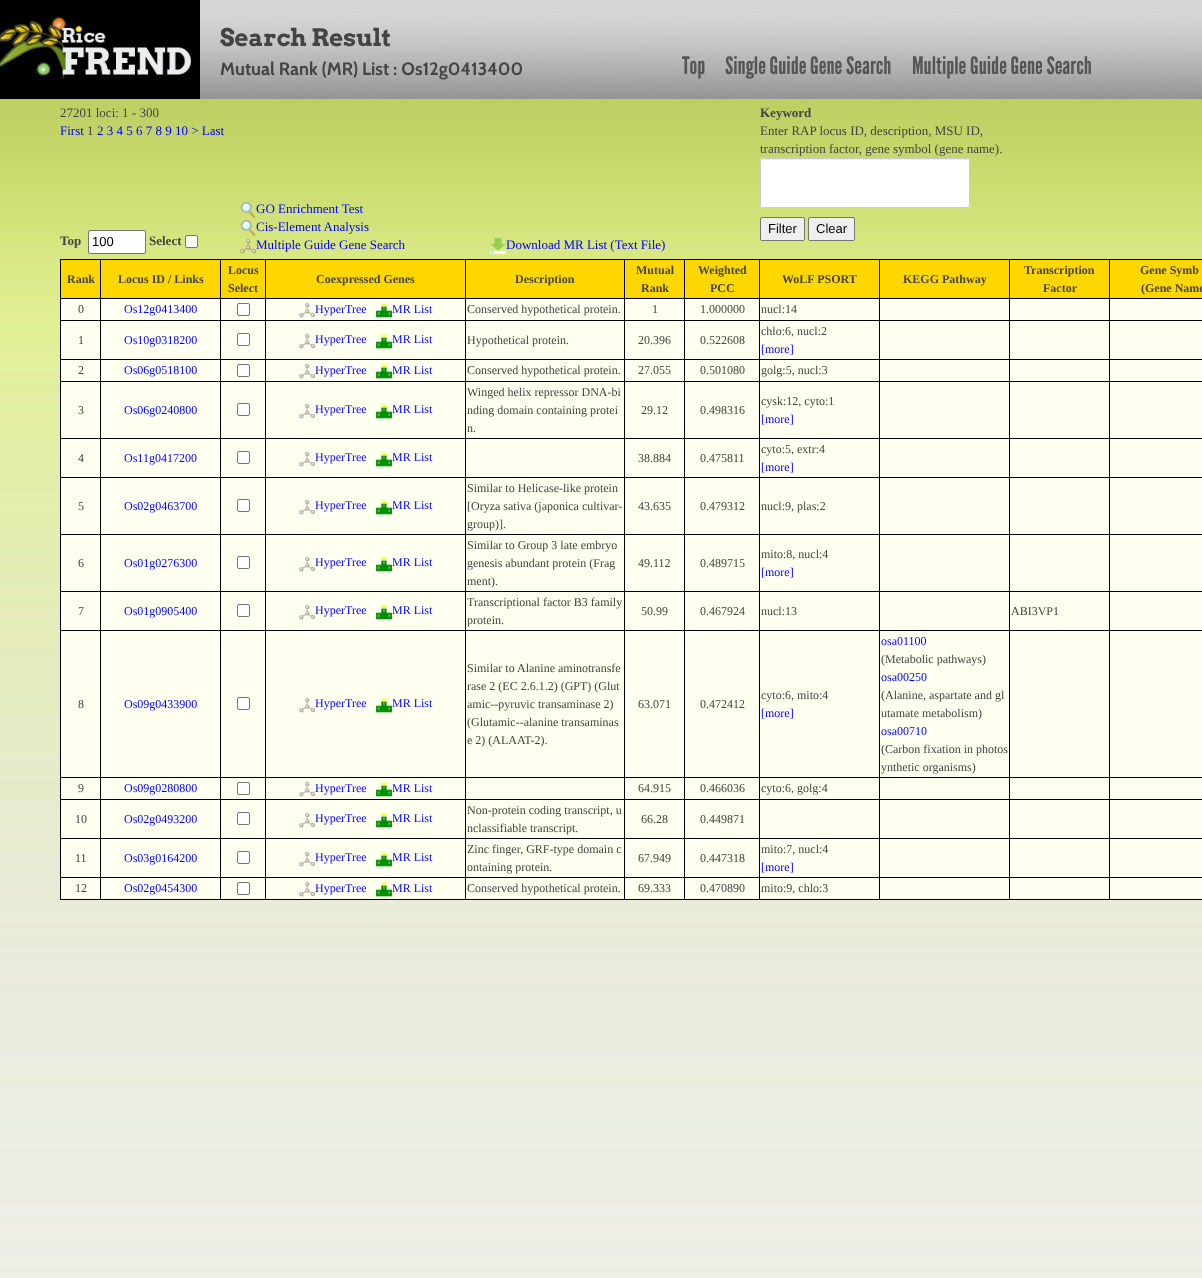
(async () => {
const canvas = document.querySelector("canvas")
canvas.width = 1202
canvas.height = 1278
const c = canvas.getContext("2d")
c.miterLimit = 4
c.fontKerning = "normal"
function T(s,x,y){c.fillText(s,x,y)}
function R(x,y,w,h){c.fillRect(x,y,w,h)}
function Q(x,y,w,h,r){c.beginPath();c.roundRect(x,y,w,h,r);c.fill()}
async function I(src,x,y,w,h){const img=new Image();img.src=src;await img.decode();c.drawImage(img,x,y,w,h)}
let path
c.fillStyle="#fff"
R(0,0,1202,1278)
await I("1.png",0,99,1202,1179)
await I("2.png",200,0,1002,99)
await I("3.png",0,0,200,99)
c.font="bold 24px Arvo"
c.fillStyle="#444"
T("Search Result",220,46)
c.font="bold 18px Cabin"
T("Mutual Rank (MR) List : Os12g0413400",220,75)
c.font="24px League Gothic"
c.fillStyle="#555"
T("Top",682,74)
T("Single Guide Gene Search",725,74)
T("Multiple Guide Gene Search",912,74)
c.font="13px Liberation Serif"
c.fillStyle="#444"
T("27201 loci: 1 - 300",60,117)
c.fillStyle="#00f"
T("First",60,135)
c.fillStyle="#444"
T("1",87,135)
c.fillStyle="#00f"
T("2 3 4 5 6 7 8 9 10 > Last",97,135)
c.font="bold 13px Liberation Serif"
c.fillStyle="#444"
T("Top",60,245)
c.fillStyle="#fff"
c.beginPath()
c.roundRect(88.5,230.5,57,23,1.5)
c.fill()
c.strokeStyle="#767676"
c.stroke()
c.font="13px Liberation Sans"
c.fillStyle="#000"
T("100",92,246)
c.font="bold 13px Liberation Serif"
c.fillStyle="#444"
T("Select",149,245)
c.fillStyle="#fff"
c.beginPath()
c.roundRect(185.5,235.5,12,12,1.5)
c.fill()
c.stroke()
await I("4.png",240,202,16,16)
c.font="13px Liberation Serif"
c.fillStyle="#00f"
T("GO Enrichment Test",256,213)
await I("5.png",240,220,16,16)
T("Cis-Element Analysis",256,231)
await I("6.png",240,238,16,16)
T("Multiple Guide Gene Search",256,249)
await I("7.png",490,238,16,16)
T("Download MR List (Text File)",506,249)
c.font="bold 13px Liberation Serif"
c.fillStyle="#444"
T("Keyword",760,117)
c.font="13px Liberation Serif"
T("Enter RAP locus ID, description, MSU ID,",760,135)
T("transcription factor, gene symbol (gene name).",760,153)
c.fillStyle="#fff"
Q(760,158,210,50,3)
c.fillStyle="#ececec"
path = new Path2D("M763 160h204l2 1v1c0-1 0-3-2-3h-204c-2 0-2 2-2 3c0-1 1-2 2-2z")
c.fill(path)
c.beginPath()
c.roundRect(760.5,158.5,209,49,2.5)
c.strokeStyle="#ccc"
c.stroke()
c.fillStyle="#efefef"
c.beginPath()
c.roundRect(760.5,217.5,44,23,1.5)
c.fill()
c.strokeStyle="#767676"
c.stroke()
c.font="13px Liberation Sans"
c.fillStyle="#000"
T("Filter",768,233)
c.fillStyle="#efefef"
c.beginPath()
c.roundRect(808.5,217.5,46,23,1.5)
c.fill()
c.stroke()
c.fillStyle="#000"
T("Clear",816,233)
c.fillStyle="#ffd700"
R(61,260,1141,38)
c.fillStyle="#000"
R(60,259,1142,1)
R(60,298,1142,1)
R(60,259,1,40)
c.font="bold 12px Liberation Serif"
c.fillStyle="#444"
T("Rank",67,283)
c.fillStyle="#000"
R(100,259,1,40)
c.fillStyle="#444"
T("Locus ID / Links",118,283)
c.fillStyle="#000"
R(220,259,1,40)
c.fillStyle="#444"
T("Locus",228,274)
T("Select",228,292)
c.fillStyle="#000"
R(265,259,1,40)
c.fillStyle="#444"
T("Coexpressed Genes",316,283)
c.fillStyle="#000"
R(465,259,1,40)
c.fillStyle="#444"
T("Description",515,283)
c.fillStyle="#000"
R(624,259,1,40)
c.fillStyle="#444"
T("Mutual",636,274)
T("Rank",641,292)
c.fillStyle="#000"
R(684,259,1,40)
c.fillStyle="#444"
T("Weighted",698,274)
T("PCC",710,292)
c.fillStyle="#000"
R(759,259,1,40)
c.fillStyle="#444"
T("WoLF PSORT",782,283)
c.fillStyle="#000"
R(879,259,1,40)
c.fillStyle="#444"
T("KEGG Pathway",903,283)
c.fillStyle="#000"
R(1009,259,1,40)
c.fillStyle="#444"
T("Transcription",1024,274)
T("Factor",1043,292)
c.fillStyle="#000"
R(1109,259,1,40)
c.fillStyle="#444"
T("Gene Symb",1140,274)
T("(Gene Name",1141,292)
c.fillStyle="#000"
R(60,899,1142,1)
c.fillStyle="#fffff0"
R(61,299,1141,600)
c.fillStyle="#000"
R(1109,877,1,22)
R(1109,877,93,1)
R(1109,838,1,40)
R(1109,838,93,1)
R(1109,799,1,40)
R(1109,799,93,1)
R(1109,777,1,23)
R(1109,777,93,1)
R(1109,630,1,148)
R(1109,630,93,1)
R(1109,591,1,40)
R(1109,591,93,1)
R(1109,534,1,58)
R(1109,534,93,1)
R(1109,477,1,58)
R(1109,477,93,1)
R(1109,438,1,40)
R(1109,438,93,1)
R(1109,381,1,58)
R(1109,381,93,1)
R(1109,359,1,23)
R(1109,359,93,1)
R(1109,320,1,40)
R(1109,320,93,1)
R(1109,299,1,22)
R(1009,877,1,22)
R(1009,877,101,1)
R(1009,838,1,40)
R(1009,838,101,1)
R(1009,799,1,40)
R(1009,799,101,1)
R(1009,777,1,23)
R(1009,777,101,1)
R(1009,630,1,148)
R(1009,630,101,1)
R(1009,591,1,40)
R(1009,591,101,1)
R(1009,534,1,58)
R(1009,534,101,1)
R(1009,477,1,58)
R(1009,477,101,1)
R(1009,438,1,40)
R(1009,438,101,1)
R(1009,381,1,58)
R(1009,381,101,1)
R(1009,359,1,23)
R(1009,359,101,1)
R(1009,320,1,40)
R(1009,320,101,1)
R(1009,299,1,22)
R(879,877,1,22)
R(879,877,131,1)
R(879,838,1,40)
R(879,838,131,1)
R(879,799,1,40)
R(879,799,131,1)
R(879,777,1,23)
R(879,777,131,1)
R(879,630,1,148)
R(879,630,131,1)
R(879,591,1,40)
R(879,591,131,1)
R(879,534,1,58)
R(879,534,131,1)
R(879,477,1,58)
R(879,477,131,1)
R(879,438,1,40)
R(879,438,131,1)
R(879,381,1,58)
R(879,381,131,1)
R(879,359,1,23)
R(879,359,131,1)
R(879,320,1,40)
R(879,320,131,1)
R(879,299,1,22)
R(759,877,1,22)
R(759,877,121,1)
R(759,838,1,40)
R(759,838,121,1)
R(759,799,1,40)
R(759,799,121,1)
R(759,777,1,23)
R(759,777,121,1)
R(759,630,1,148)
R(759,630,121,1)
R(759,591,1,40)
R(759,591,121,1)
R(759,534,1,58)
R(759,534,121,1)
R(759,477,1,58)
R(759,477,121,1)
R(759,438,1,40)
R(759,438,121,1)
R(759,381,1,58)
R(759,381,121,1)
R(759,359,1,23)
R(759,359,121,1)
R(759,320,1,40)
R(759,320,121,1)
R(759,299,1,22)
R(684,877,1,22)
R(684,877,76,1)
R(684,838,1,40)
R(684,838,76,1)
R(684,799,1,40)
R(684,799,76,1)
R(684,777,1,23)
R(684,777,76,1)
R(684,630,1,148)
R(684,630,76,1)
R(684,591,1,40)
R(684,591,76,1)
R(684,534,1,58)
R(684,534,76,1)
R(684,477,1,58)
R(684,477,76,1)
R(684,438,1,40)
R(684,438,76,1)
R(684,381,1,58)
R(684,381,76,1)
R(684,359,1,23)
R(684,359,76,1)
R(684,320,1,40)
R(684,320,76,1)
R(684,299,1,22)
R(624,877,1,22)
R(624,877,61,1)
R(624,838,1,40)
R(624,838,61,1)
R(624,799,1,40)
R(624,799,61,1)
R(624,777,1,23)
R(624,777,61,1)
R(624,630,1,148)
R(624,630,61,1)
R(624,591,1,40)
R(624,591,61,1)
R(624,534,1,58)
R(624,534,61,1)
R(624,477,1,58)
R(624,477,61,1)
R(624,438,1,40)
R(624,438,61,1)
R(624,381,1,58)
R(624,381,61,1)
R(624,359,1,23)
R(624,359,61,1)
R(624,320,1,40)
R(624,320,61,1)
R(624,299,1,22)
R(465,877,1,22)
R(465,877,160,1)
R(465,838,1,40)
R(465,838,160,1)
R(465,799,1,40)
R(465,799,160,1)
R(465,777,1,23)
R(465,777,160,1)
R(465,630,1,148)
R(465,630,160,1)
R(465,591,1,40)
R(465,591,160,1)
R(465,534,1,58)
R(465,534,160,1)
R(465,477,1,58)
R(465,477,160,1)
R(465,438,1,40)
R(465,438,160,1)
R(465,381,1,58)
R(465,381,160,1)
R(465,359,1,23)
R(465,359,160,1)
R(465,320,1,40)
R(465,320,160,1)
R(465,299,1,22)
R(265,877,1,22)
R(265,877,201,1)
R(265,838,1,40)
R(265,838,201,1)
R(265,799,1,40)
R(265,799,201,1)
R(265,777,1,23)
R(265,777,201,1)
R(265,630,1,148)
R(265,630,201,1)
R(265,591,1,40)
R(265,591,201,1)
R(265,534,1,58)
R(265,534,201,1)
R(265,477,1,58)
R(265,477,201,1)
R(265,438,1,40)
R(265,438,201,1)
R(265,381,1,58)
R(265,381,201,1)
R(265,359,1,23)
R(265,359,201,1)
R(265,320,1,40)
R(265,320,201,1)
R(265,299,1,22)
R(220,877,1,22)
R(220,877,46,1)
R(220,838,1,40)
R(220,838,46,1)
R(220,799,1,40)
R(220,799,46,1)
R(220,777,1,23)
R(220,777,46,1)
R(220,630,1,148)
R(220,630,46,1)
R(220,591,1,40)
R(220,591,46,1)
R(220,534,1,58)
R(220,534,46,1)
R(220,477,1,58)
R(220,477,46,1)
R(220,438,1,40)
R(220,438,46,1)
R(220,381,1,58)
R(220,381,46,1)
R(220,359,1,23)
R(220,359,46,1)
R(220,320,1,40)
R(220,320,46,1)
R(220,299,1,22)
R(100,877,1,22)
R(100,877,121,1)
R(100,838,1,40)
R(100,838,121,1)
R(100,799,1,40)
R(100,799,121,1)
R(100,777,1,23)
R(100,777,121,1)
R(100,630,1,148)
R(100,630,121,1)
R(100,591,1,40)
R(100,591,121,1)
R(100,534,1,58)
R(100,534,121,1)
R(100,477,1,58)
R(100,477,121,1)
R(100,438,1,40)
R(100,438,121,1)
R(100,381,1,58)
R(100,381,121,1)
R(100,359,1,23)
R(100,359,121,1)
R(100,320,1,40)
R(100,320,121,1)
R(100,299,1,22)
R(60,877,1,22)
R(60,877,41,1)
R(60,838,1,40)
R(60,838,41,1)
R(60,799,1,40)
R(60,799,41,1)
R(60,777,1,23)
R(60,777,41,1)
R(60,630,1,148)
R(60,630,41,1)
R(60,591,1,40)
R(60,591,41,1)
R(60,534,1,58)
R(60,534,41,1)
R(60,477,1,58)
R(60,477,41,1)
R(60,438,1,40)
R(60,438,41,1)
R(60,381,1,58)
R(60,381,41,1)
R(60,359,1,23)
R(60,359,41,1)
R(60,320,1,40)
R(60,320,41,1)
R(60,299,1,22)
c.font="12px Liberation Serif"
c.fillStyle="#444"
T("0",78,313)
c.fillStyle="#00f"
T("Os12g0413400",124,313)
c.fillStyle="#fff"
c.beginPath()
c.roundRect(237.5,303.5,12,12,1.5)
c.fill()
c.stroke()
await I("8.png",299,302,16,16)
c.fillStyle="#00f"
T("HyperTree",315,313)
await I("9.png",376,302,16,16)
T("MR List",392,313)
c.fillStyle="#444"
T("Conserved hypothetical protein.",467,313)
T("1",652,313)
T("1.000000",700,313)
T("nucl:14",761,313)
T("1",78,344)
c.fillStyle="#00f"
T("Os10g0318200",124,344)
c.fillStyle="#fff"
c.beginPath()
c.roundRect(237.5,333.5,12,12,1.5)
c.fill()
c.stroke()
await I("8.png",299,333,16,16)
c.fillStyle="#00f"
T("HyperTree",315,343)
await I("9.png",376,333,16,16)
T("MR List",392,343)
c.fillStyle="#444"
T("Hypothetical protein.",467,344)
T("20.396",638,344)
T("0.522608",700,344)
T("chlo:6, nucl:2",761,335)
c.fillStyle="#00f"
T("[more]",761,353)
c.fillStyle="#444"
T("2",78,374)
c.fillStyle="#00f"
T("Os06g0518100",124,374)
c.fillStyle="#fff"
c.beginPath()
c.roundRect(237.5,364.5,12,12,1.5)
c.fill()
c.stroke()
await I("8.png",299,363,16,16)
c.fillStyle="#00f"
T("HyperTree",315,374)
await I("9.png",376,363,16,16)
T("MR List",392,374)
c.fillStyle="#444"
T("Conserved hypothetical protein.",467,374)
T("27.055",638,374)
T("0.501080",700,374)
T("golg:5, nucl:3",761,374)
T("3",78,414)
c.fillStyle="#00f"
T("Os06g0240800",124,414)
c.fillStyle="#fff"
c.beginPath()
c.roundRect(237.5,403.5,12,12,1.5)
c.fill()
c.stroke()
await I("8.png",299,403,16,16)
c.fillStyle="#00f"
T("HyperTree",315,413)
await I("9.png",376,403,16,16)
T("MR List",392,413)
c.fillStyle="#444"
T("Winged helix repressor DNA-bi",467,396)
T("nding domain containing protei",467,414)
T("n.",467,432)
T("29.12",641,414)
T("0.498316",700,414)
T("cysk:12, cyto:1",761,405)
c.fillStyle="#00f"
T("[more]",761,423)
c.fillStyle="#444"
T("4",78,462)
c.fillStyle="#00f"
T("Os11g0417200",124,462)
c.fillStyle="#fff"
c.beginPath()
c.roundRect(237.5,451.5,12,12,1.5)
c.fill()
c.stroke()
await I("8.png",299,451,16,16)
c.fillStyle="#00f"
T("HyperTree",315,461)
await I("9.png",376,451,16,16)
T("MR List",392,461)
c.fillStyle="#444"
T("38.884",638,462)
T("0.475811",700,462)
T("cyto:5, extr:4",761,453)
c.fillStyle="#00f"
T("[more]",761,471)
c.fillStyle="#444"
T("5",78,510)
c.fillStyle="#00f"
T("Os02g0463700",124,510)
c.fillStyle="#fff"
c.beginPath()
c.roundRect(237.5,499.5,12,12,1.5)
c.fill()
c.stroke()
await I("8.png",299,499,16,16)
c.fillStyle="#00f"
T("HyperTree",315,509)
await I("9.png",376,499,16,16)
T("MR List",392,509)
c.fillStyle="#444"
T("Similar to Helicase-like protein",467,492)
T("[Oryza sativa (japonica cultivar-",467,510)
T("group)].",467,528)
T("43.635",638,510)
T("0.479312",700,510)
T("nucl:9, plas:2",761,510)
T("6",78,567)
c.fillStyle="#00f"
T("Os01g0276300",124,567)
c.fillStyle="#fff"
c.beginPath()
c.roundRect(237.5,556.5,12,12,1.5)
c.fill()
c.stroke()
await I("8.png",299,556,16,16)
c.fillStyle="#00f"
T("HyperTree",315,566)
await I("9.png",376,556,16,16)
T("MR List",392,566)
c.fillStyle="#444"
T("Similar to Group 3 late embryo",467,549)
T("genesis abundant protein (Frag",467,567)
T("ment).",467,585)
T("49.112",638,567)
T("0.489715",700,567)
T("mito:8, nucl:4",761,558)
c.fillStyle="#00f"
T("[more]",761,576)
c.fillStyle="#444"
T("7",78,615)
c.fillStyle="#00f"
T("Os01g0905400",124,615)
c.fillStyle="#fff"
c.beginPath()
c.roundRect(237.5,604.5,12,12,1.5)
c.fill()
c.stroke()
await I("8.png",299,604,16,16)
c.fillStyle="#00f"
T("HyperTree",315,614)
await I("9.png",376,604,16,16)
T("MR List",392,614)
c.fillStyle="#444"
T("Transcriptional factor B3 family",467,606)
T("protein.",467,624)
T("50.99",641,615)
T("0.467924",700,615)
T("nucl:13",761,615)
T("ABI3VP1",1011,615)
T("8",78,708)
c.fillStyle="#00f"
T("Os09g0433900",124,708)
c.fillStyle="#fff"
c.beginPath()
c.roundRect(237.5,697.5,12,12,1.5)
c.fill()
c.stroke()
await I("8.png",299,697,16,16)
c.fillStyle="#00f"
T("HyperTree",315,707)
await I("9.png",376,697,16,16)
T("MR List",392,707)
c.fillStyle="#444"
T("Similar to Alanine aminotransfe",467,672)
T("rase 2 (EC 2.6.1.2) (GPT) (Glut",467,690)
T("amic--pyruvic transaminase 2)",467,708)
T("(Glutamic--alanine transaminas",467,726)
T("e 2) (ALAAT-2).",467,744)
T("63.071",638,708)
T("0.472412",700,708)
T("cyto:6, mito:4",761,699)
c.fillStyle="#00f"
T("[more]",761,717)
T("osa01100",881,645)
c.fillStyle="#444"
T("(Metabolic pathways)",881,663)
c.fillStyle="#00f"
T("osa00250",881,681)
c.fillStyle="#444"
T("(Alanine, aspartate and gl",881,699)
T("utamate metabolism)",881,717)
c.fillStyle="#00f"
T("osa00710",881,735)
c.fillStyle="#444"
T("(Carbon fixation in photos",881,753)
T("ynthetic organisms)",881,771)
T("9",78,792)
c.fillStyle="#00f"
T("Os09g0280800",124,792)
c.fillStyle="#fff"
c.beginPath()
c.roundRect(237.5,782.5,12,12,1.5)
c.fill()
c.stroke()
await I("8.png",299,781,16,16)
c.fillStyle="#00f"
T("HyperTree",315,792)
await I("9.png",376,781,16,16)
T("MR List",392,792)
c.fillStyle="#444"
T("64.915",638,792)
T("0.466036",700,792)
T("cyto:6, golg:4",761,792)
T("10",75,823)
c.fillStyle="#00f"
T("Os02g0493200",124,823)
c.fillStyle="#fff"
c.beginPath()
c.roundRect(237.5,812.5,12,12,1.5)
c.fill()
c.stroke()
await I("8.png",299,812,16,16)
c.fillStyle="#00f"
T("HyperTree",315,822)
await I("9.png",376,812,16,16)
T("MR List",392,822)
c.fillStyle="#444"
T("Non-protein coding transcript, u",467,814)
T("nclassifiable transcript.",467,832)
T("66.28",641,823)
T("0.449871",700,823)
T("11",75,862)
c.fillStyle="#00f"
T("Os03g0164200",124,862)
c.fillStyle="#fff"
c.beginPath()
c.roundRect(237.5,851.5,12,12,1.5)
c.fill()
c.stroke()
await I("8.png",299,851,16,16)
c.fillStyle="#00f"
T("HyperTree",315,861)
await I("9.png",376,851,16,16)
T("MR List",392,861)
c.fillStyle="#444"
T("Zinc finger, GRF-type domain c",467,853)
T("ontaining protein.",467,871)
T("67.949",638,862)
T("0.447318",700,862)
T("mito:7, nucl:4",761,853)
c.fillStyle="#00f"
T("[more]",761,871)
c.fillStyle="#444"
T("12",75,892)
c.fillStyle="#00f"
T("Os02g0454300",124,892)
c.fillStyle="#fff"
c.beginPath()
c.roundRect(237.5,882.5,12,12,1.5)
c.fill()
c.stroke()
await I("8.png",299,881,16,16)
c.fillStyle="#00f"
T("HyperTree",315,892)
await I("9.png",376,881,16,16)
T("MR List",392,892)
c.fillStyle="#444"
T("Conserved hypothetical protein.",467,892)
T("69.333",638,892)
T("0.470890",700,892)
T("mito:9, chlo:3",761,892)
})()
